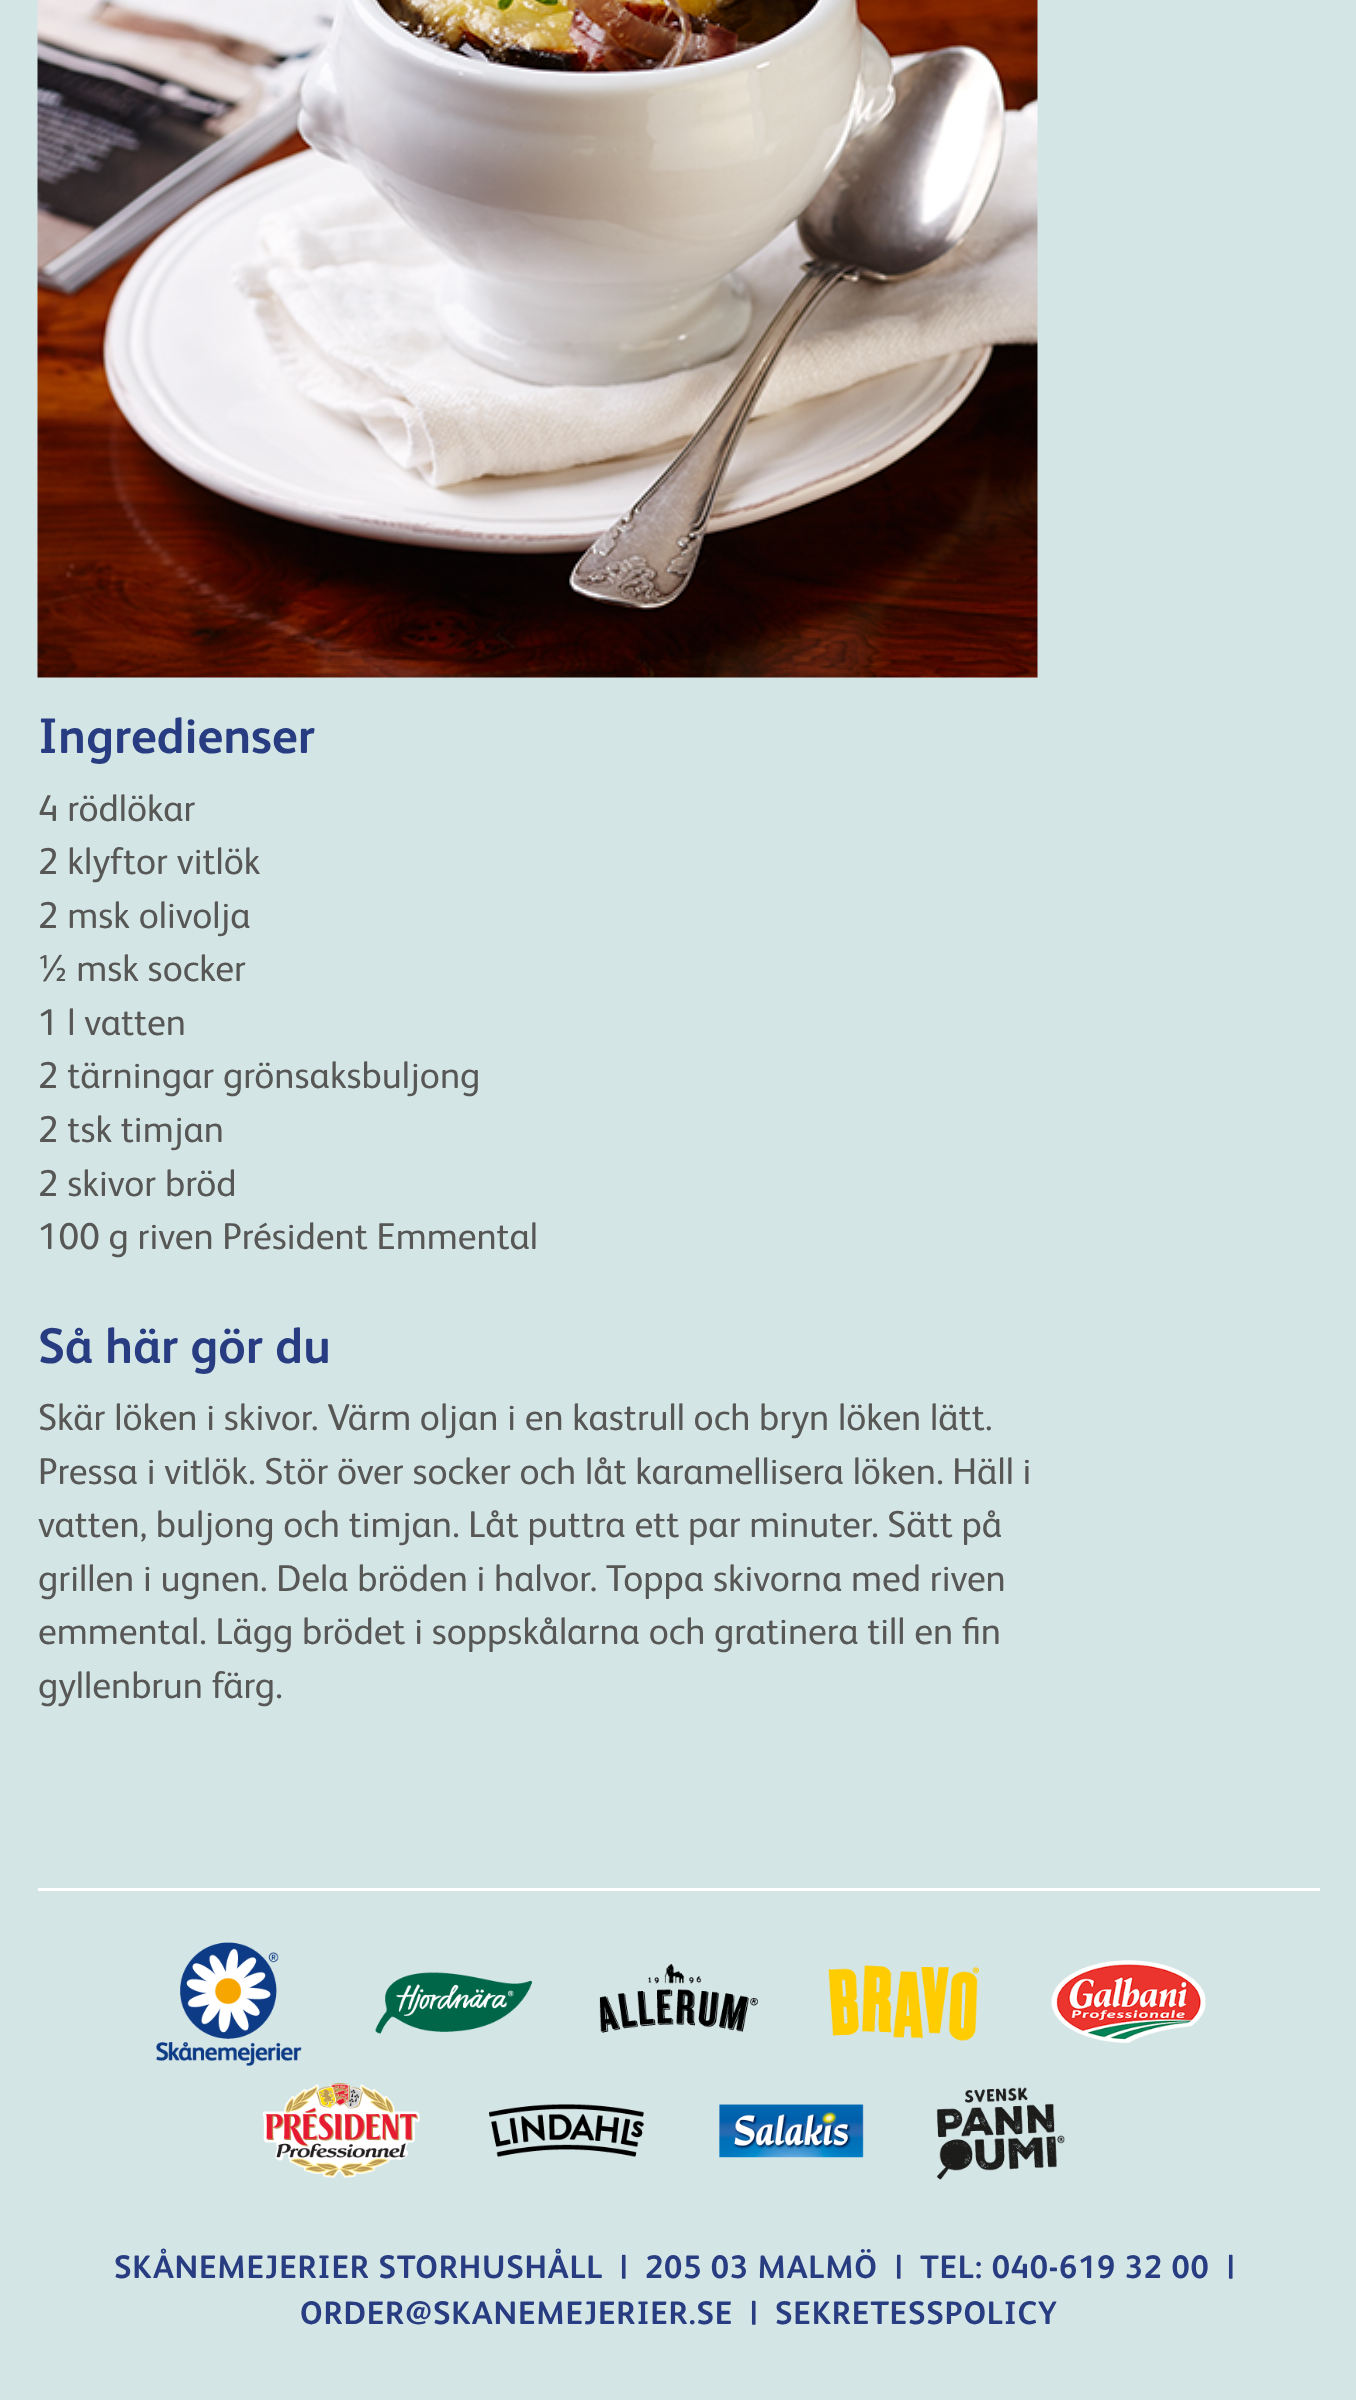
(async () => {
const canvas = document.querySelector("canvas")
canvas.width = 1356
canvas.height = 2400
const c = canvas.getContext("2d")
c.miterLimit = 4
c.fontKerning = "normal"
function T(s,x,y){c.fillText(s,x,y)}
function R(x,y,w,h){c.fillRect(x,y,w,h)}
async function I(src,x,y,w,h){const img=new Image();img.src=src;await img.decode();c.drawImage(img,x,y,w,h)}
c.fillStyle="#d4e5e6"
R(0,0,1356,2400)
await I("1.png",37,0,1001,678)
c.font="bold 50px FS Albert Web"
c.fillStyle="#283d81"
T("Ingredienser",38,753)
c.font="37.5px FS Albert Web"
c.fillStyle="#575756"
T("4 rödlökar",38,821)
T("2 klyftor vitlök",38,874)
T("2 msk olivolja",38,928)
T("½ msk socker",38,981)
T("1 l vatten",38,1035)
T("2 tärningar grönsaksbuljong",38,1088)
T("2 tsk timjan",38,1142)
T("2 skivor bröd",38,1196)
T("100 g riven Président Emmental",38,1249)
c.font="bold 50px FS Albert Web"
c.fillStyle="#283d81"
T("Så här gör du",38,1363)
c.font="37.5px FS Albert Web"
c.fillStyle="#575756"
T("Skär löken i skivor. Värm oljan i en kastrull och bryn löken lätt.",38,1430)
T("Pressa i vitlök. Stör över socker och låt karamellisera löken. Häll i",38,1484)
T("vatten, buljong och timjan. Låt puttra ett par minuter. Sätt på",38,1537)
T("grillen i ugnen. Dela bröden i halvor. Toppa skivorna med riven",38,1591)
T("emmental. Lägg brödet i soppskålarna och gratinera till en fin",38,1644)
T("gyllenbrun färg.",38,1698)
c.fillStyle="#fff"
R(38,1888,1282,3)
await I("2.png",156,1942,146,124)
await I("3.png",375,1972,157,62)
await I("4.png",599,1964,159,69)
await I("5.png",828,1965,151,76)
await I("6.png",1051,1960,155,83)
await I("7.png",262,2083,158,95)
await I("8.png",489,2104,155,53)
await I("9.png",719,2104,145,54)
await I("10.png",936,2087,129,93)
c.letterSpacing="0.8px"
c.font="bold 32.5px FS Albert Web"
c.fillStyle="#283d81"
T("SKÅNEMEJERIER STORHUSHÅLL",114,2278)
T("|",620,2278)
T("205 03 MALMÖ",645,2278)
T("|",895,2278)
T("TEL: 040-619 32 00",920,2278)
T("|",1227,2278)
T("ORDER@SKANEMEJERIER.SE",300,2324)
T("|",750,2324)
T("SEKRETESSPOLICY",775,2324)
})()
